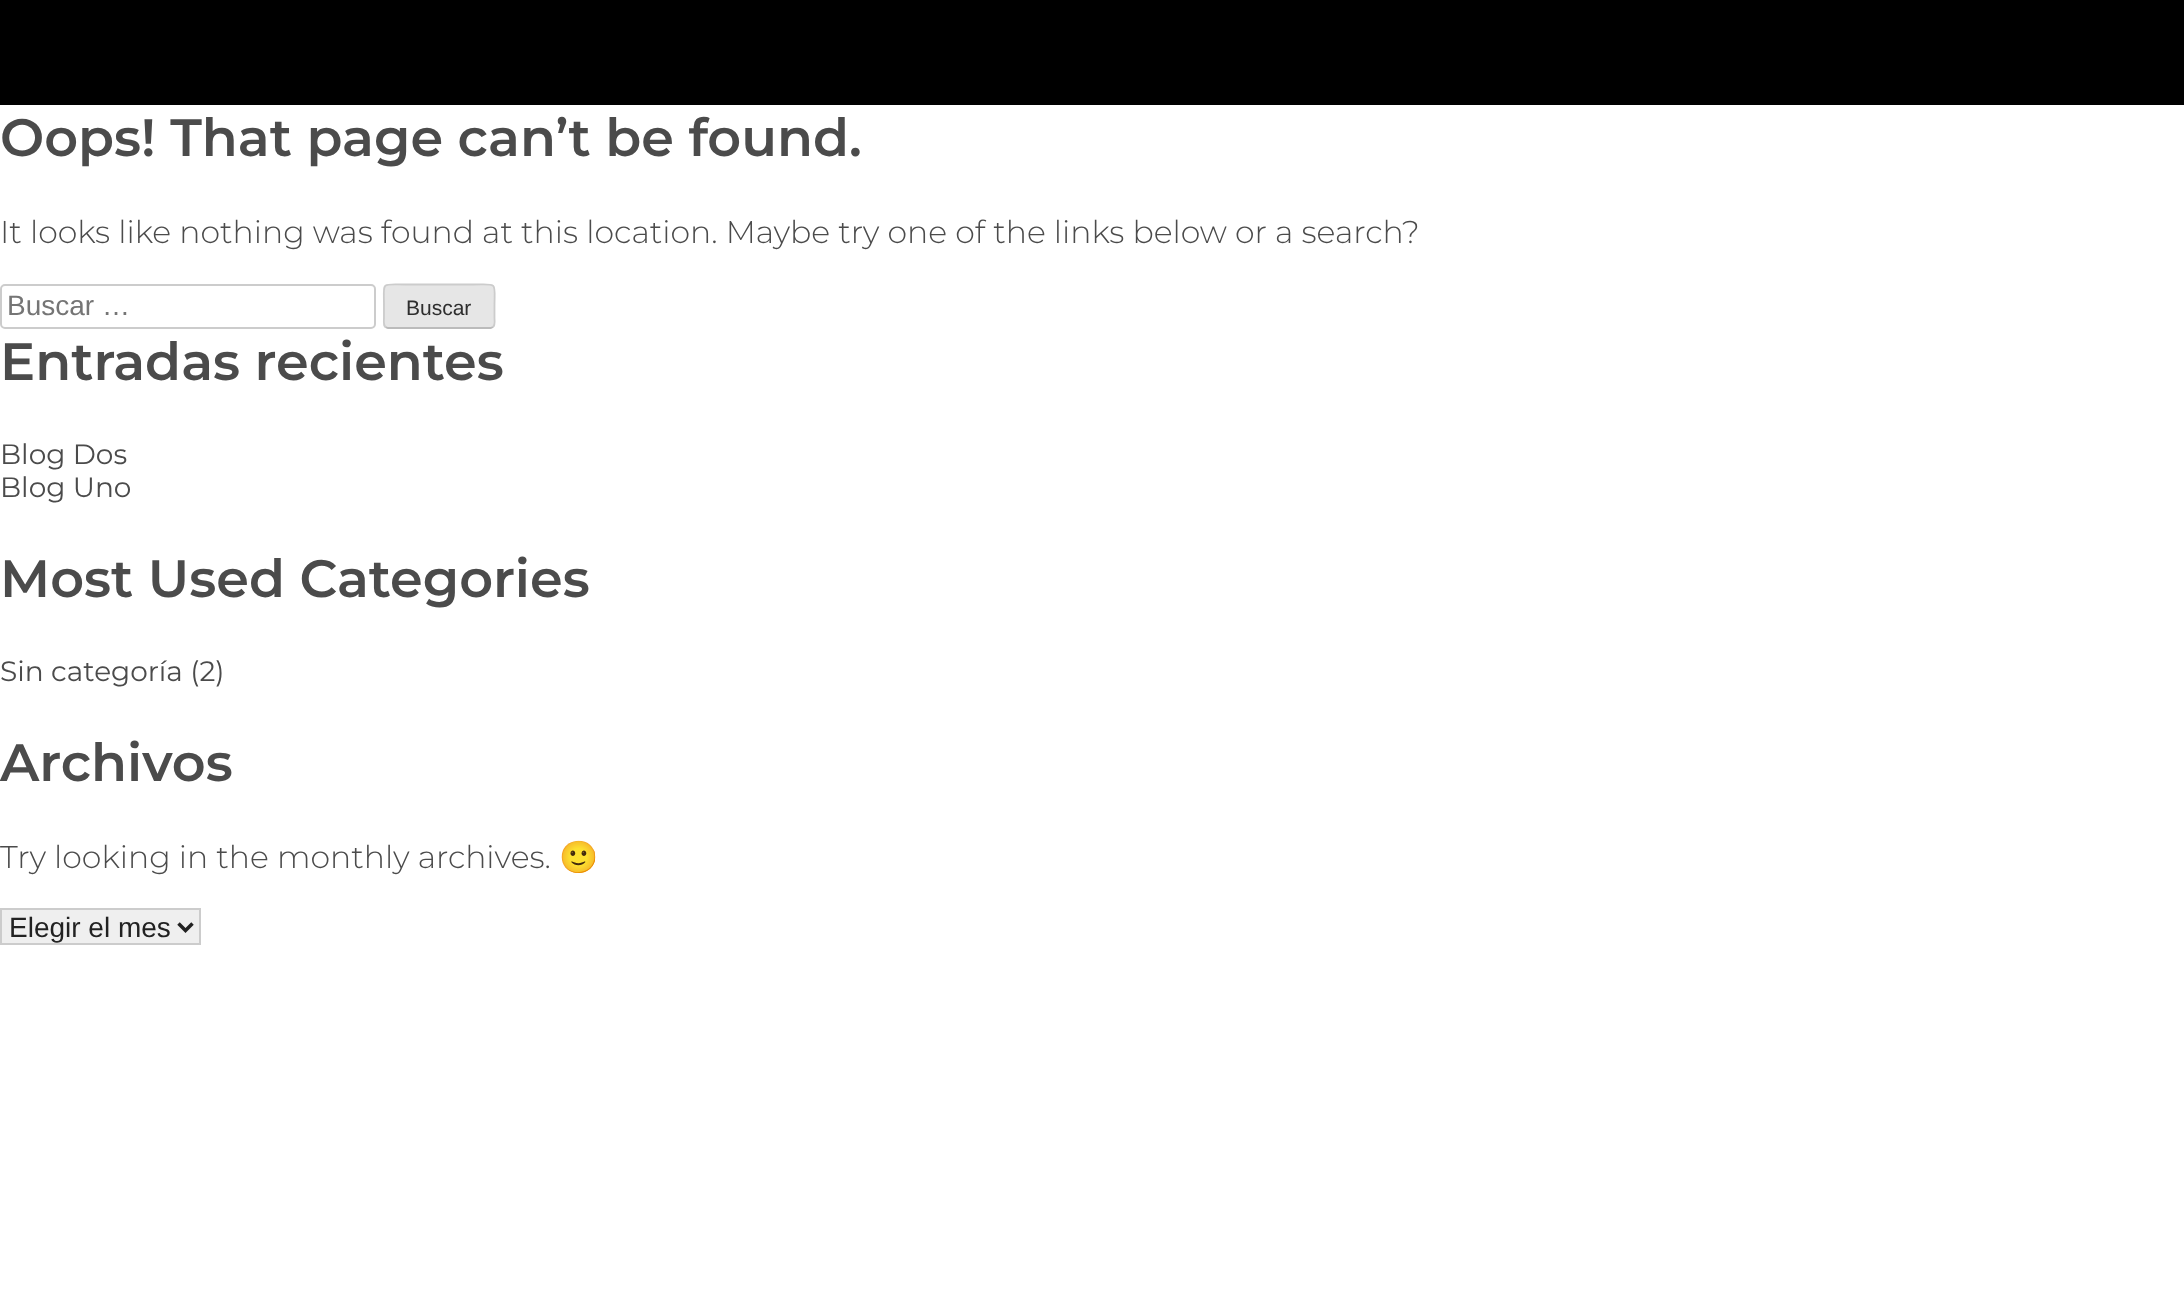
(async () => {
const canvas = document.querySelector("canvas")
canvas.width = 2184
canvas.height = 1303
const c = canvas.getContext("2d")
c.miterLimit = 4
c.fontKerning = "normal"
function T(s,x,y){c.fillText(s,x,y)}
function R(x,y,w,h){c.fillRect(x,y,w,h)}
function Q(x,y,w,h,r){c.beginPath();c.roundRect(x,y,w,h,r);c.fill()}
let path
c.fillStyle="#fff"
R(0,0,2184,1303)
c.fillStyle="#000"
R(0,0,2184,105)
c.font="600 52.5px Montserrat"
c.fillStyle="#4b4b4b"
T("Oops! That page can’t be found.",0,156)
c.font="300 31.5px Montserrat"
T("It looks like nothing was found at this location. Maybe try one of the links below or a search?",0,243)
c.beginPath()
c.roundRect(1,285,374,43,4)
c.strokeStyle="#ccc"
c.lineWidth=2
c.stroke()
c.font="28px Liberation Sans"
c.fillStyle="#757575"
T("Buscar …",7,315)
c.fillStyle="#e6e6e6"
Q(383,284,112,45,5)
path = new Path2D("M493 327l-2.5 1h-102.5l-2.5-1")
c.strokeStyle="#bbb"
c.lineWidth=1.8
c.stroke(path)
path = new Path2D("M385.5 327c-2.5-2.5-1.5-6.5-1.5-9v-12c0-25-4-21.5 21.5-21.5h67.5c25.5 0 21.5-3.5 21.5 21.5v12c0 2.5 1 6.5-1.5 9")
c.strokeStyle="#ccc"
c.stroke(path)
c.font="21px Liberation Sans"
c.fillStyle="#2e2e2e"
T("Buscar",406,315)
c.font="600 52.5px Montserrat"
c.fillStyle="#4b4b4b"
T("Entradas recientes",0,380)
c.font="28px Montserrat"
T("Blog Dos",0,464)
T("Blog Uno",0,497)
c.font="600 52.5px Montserrat"
T("Most Used Categories",0,597)
c.font="28px Montserrat"
T("Sin categoría (2)",0,681)
c.font="600 52.5px Montserrat"
T("Archivos",0,781)
c.font="300 31.5px Montserrat"
T("Try looking in the monthly archives.",0,868)
c.font="31.5px Noto Color Emoji"
T("🙂",559,868)
c.fillStyle="#efefef"
c.beginPath()
c.rect(1,909,199,35)
c.fill()
c.lineWidth=2
c.stroke()
path = new Path2D("M178.5 923.5l7 7l7-7")
c.strokeStyle="#222"
c.lineWidth=3.5
c.stroke(path)
c.font="28px Liberation Sans"
c.fillStyle="#222"
T("Elegir el mes",9,937)
})()
